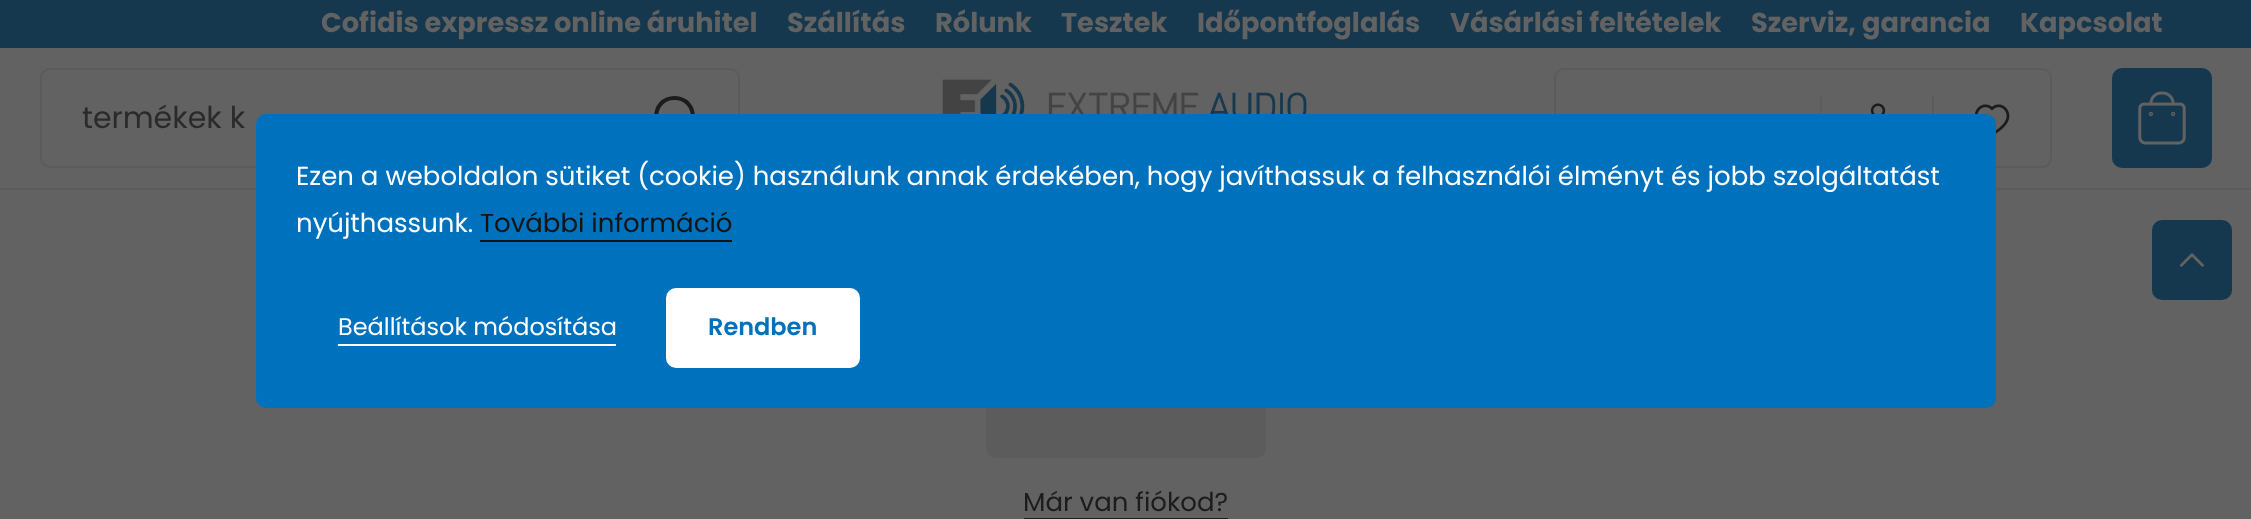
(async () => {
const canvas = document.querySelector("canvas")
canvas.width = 2251
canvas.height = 519
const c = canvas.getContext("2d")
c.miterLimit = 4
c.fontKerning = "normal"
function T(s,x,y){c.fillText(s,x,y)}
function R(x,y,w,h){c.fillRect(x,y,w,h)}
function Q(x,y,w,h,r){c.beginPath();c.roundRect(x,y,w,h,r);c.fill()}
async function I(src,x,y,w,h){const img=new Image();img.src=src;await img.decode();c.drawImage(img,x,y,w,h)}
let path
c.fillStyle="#626262"
R(0,0,2251,519)
c.fillStyle="#5b5b5b"
R(0,188,2251,2)
c.fillStyle="#16384e"
R(0,0,2251,48)
c.font="bold 27.25px Poppins"
c.fillStyle="#626262"
T("Cofidis expressz online áruhitel",321,32)
T("Szállítás",787,32)
T("Rólunk",935,32)
T("Tesztek",1061,32)
T("Időpontfoglalás",1197,32)
T("Vásárlási feltételek",1450,32)
T("Szerviz, garancia",1751,32)
T("Kapcsolat",2020,32)
await I("1.png",942,79,365,35)
c.beginPath()
c.roundRect(1555,69,496,98,9)
c.strokeStyle="#5b5b5b"
c.lineWidth=2
c.stroke()
c.fillStyle="#5d5d5d"
R(1820,96,2,18)
await I("2.png",1870,103,16,11)
c.fillStyle="#5b5b5b"
R(1932,96,2,18)
await I("3.png",1974,104,36,30)
c.fillStyle="#16384e"
c.beginPath()
c.roundRect(2113,69,98,98,9)
c.fill()
c.strokeStyle="#16384e"
c.stroke()
await I("4.png",2138,91,48,54)
c.beginPath()
c.roundRect(41,69,698,98,9)
c.strokeStyle="#5b5b5b"
c.stroke()
c.font="30px Poppins"
c.fillStyle="#2a2a2a"
T("termékek k",82,128)
path = new Path2D("M696 138l-8-8m-13.5 5.5c-24.5 0-24.5-37.5 0-37.5c24.5 0 24.5 37.5 0 37.5z")
c.strokeStyle="#1c1c1c"
c.lineWidth=4
c.lineCap="round"
c.lineJoin="round"
c.stroke(path)
c.fillStyle="#16384e"
c.beginPath()
c.roundRect(2153,221,78,78,9)
c.fill()
c.strokeStyle="#16384e"
c.lineWidth=2
c.lineJoin="miter"
c.stroke()
await I("5.png",2180,253,24,14)
c.fillStyle="#5c5c5c"
Q(986,364,280,94,10)
c.font="26px Poppins"
c.fillStyle="#1c1c1c"
T("Már van fiókod?",1023,511)
R(1024,518,204,1)
c.fillStyle="#0071bc"
Q(256,114,1740,294,10)
c.fillStyle="#fff"
T("Ezen a weboldalon sütiket (cookie) használunk annak érdekében, hogy javíthassuk a felhasználói élményt és jobb szolgáltatást",296,185)
T("nyújthassunk.",296,232)
c.fillStyle="#141414"
T("További információ",480,232)
R(480,240,252,2)
c.font="24px Poppins"
c.fillStyle="#fff"
T("Beállítások módosítása",338,335)
R(338,344,278,2)
c.beginPath()
c.roundRect(667,289,192,78,9)
c.fill()
c.strokeStyle="#fff"
c.stroke()
c.font="600 24px Poppins"
c.fillStyle="#0071bc"
T("Rendben",708,335)
})()
